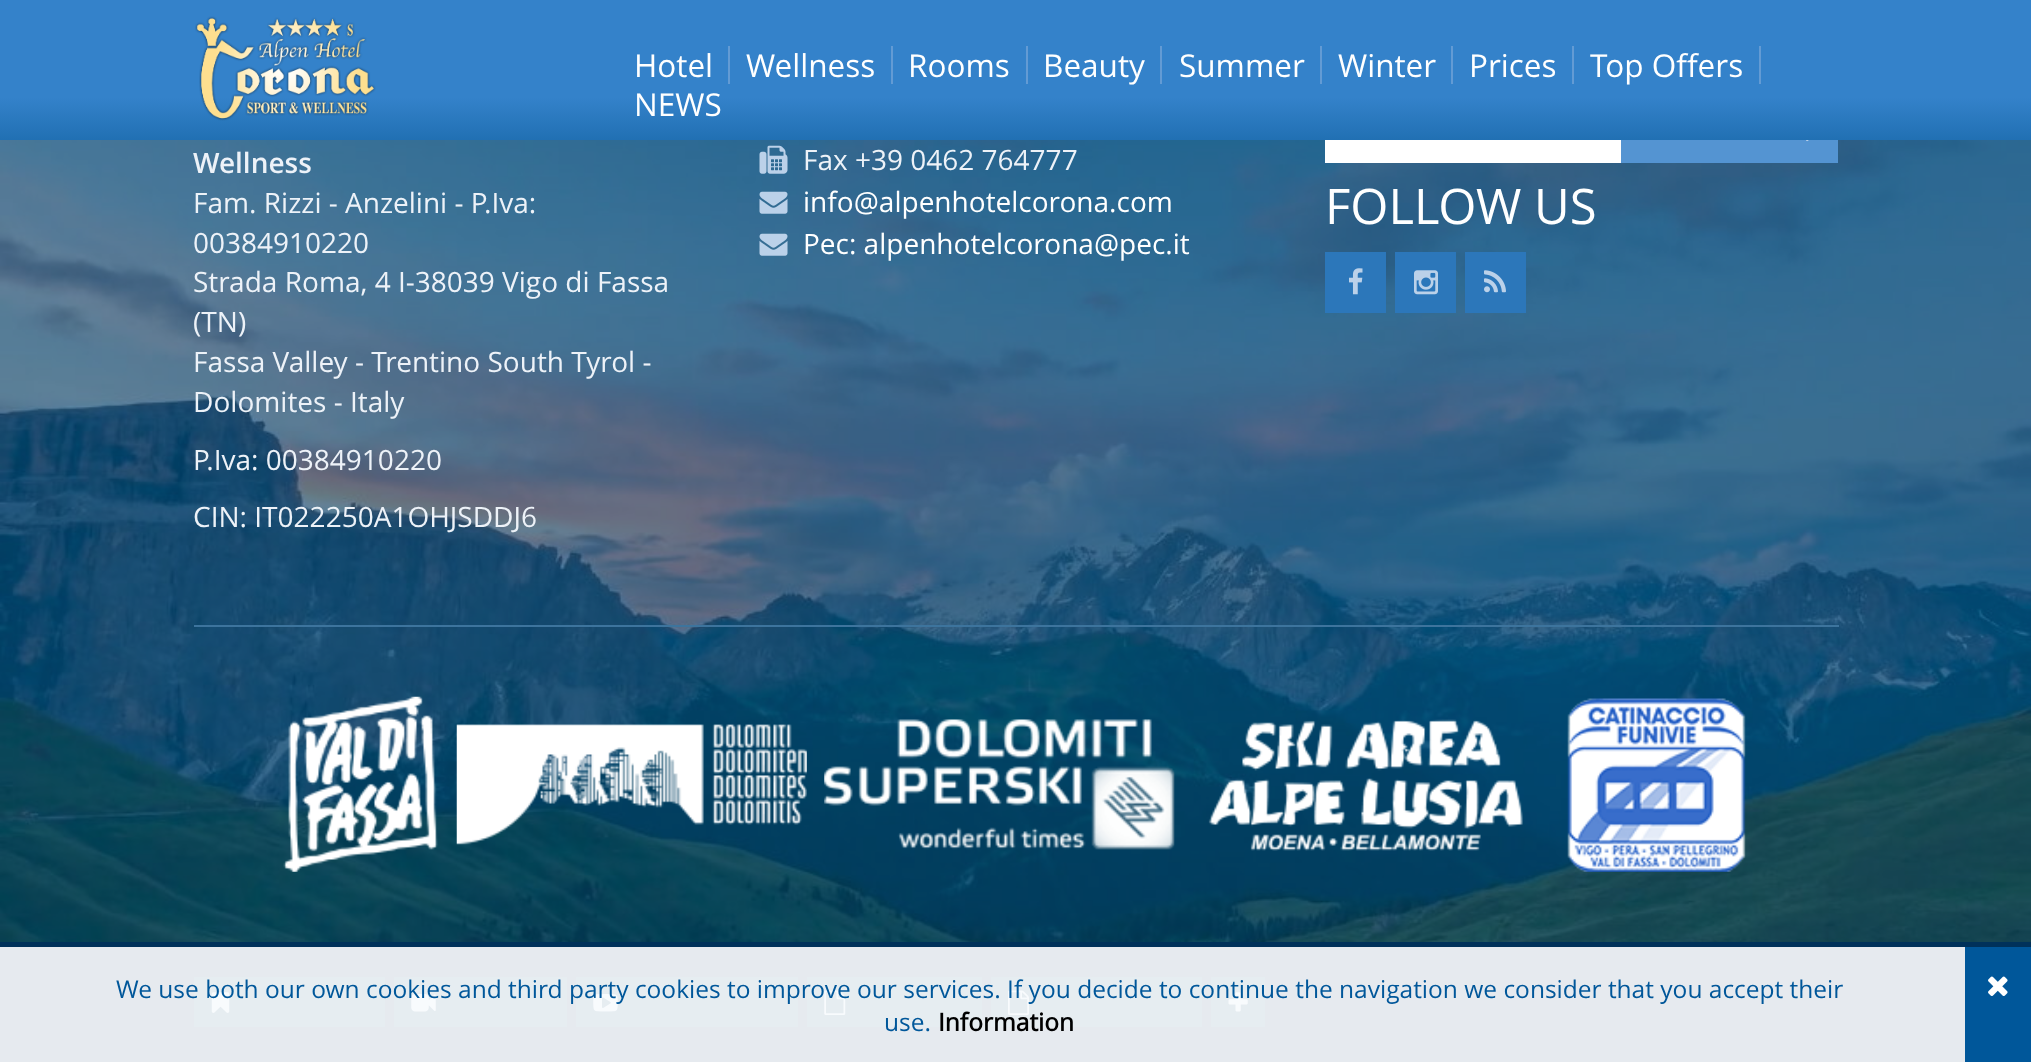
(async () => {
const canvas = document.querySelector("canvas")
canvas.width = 2031
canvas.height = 1062
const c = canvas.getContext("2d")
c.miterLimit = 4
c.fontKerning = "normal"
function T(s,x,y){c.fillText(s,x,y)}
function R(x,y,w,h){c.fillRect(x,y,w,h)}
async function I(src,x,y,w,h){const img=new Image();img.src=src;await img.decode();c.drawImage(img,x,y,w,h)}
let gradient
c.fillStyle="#fff"
R(0,0,2031,1062)
gradient = c.createLinearGradient(1016,-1.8,1016,140)
gradient.addColorStop(.7,"#3482ca")
gradient.addColorStop(1,"#2170b3")
c.fillStyle = gradient
R(0,0,2031,140)
await I("1.png",195,16,181,105)
c.fillStyle="#639bd4"
R(728,46,2,38)
c.font="31.5px Open Sans"
c.fillStyle="#fff"
T("Hotel",634,77)
c.fillStyle="#639bd4"
R(891,46,2,38)
c.fillStyle="#fff"
T("Wellness",746,77)
c.fillStyle="#639bd4"
R(1026,46,2,38)
c.fillStyle="#fff"
T("Rooms",908,77)
c.fillStyle="#639bd4"
R(1160,46,2,38)
c.fillStyle="#fff"
T("Beauty",1043,77)
c.fillStyle="#639bd4"
R(1320,46,2,38)
c.fillStyle="#fff"
T("Summer",1179,77)
c.fillStyle="#639bd4"
R(1451,46,2,38)
c.fillStyle="#fff"
T("Winter",1338,77)
c.fillStyle="#639bd4"
R(1572,46,2,38)
c.fillStyle="#fff"
T("Prices",1469,77)
c.fillStyle="#639bd4"
R(1759,46,2,38)
c.fillStyle="#fff"
T("Top Offers",1590,77)
T("NEWS",634,116)
await I("2.png",0,140,2031,802)
c.font="600 28px Open Sans"
c.fillStyle="#edf2f8"
T("Wellness",193,173)
c.font="28px Open Sans"
T("Fam. Rizzi - Anzelini - P.Iva:",193,213)
T("00384910220",193,253)
T("Strada Roma, 4 I-38039 Vigo di Fassa",193,292)
T("(TN)",193,332)
T("Fassa Valley - Trentino South Tyrol -",193,372)
T("Dolomites - Italy",193,412)
T("P.Iva: 00384910220",193,470)
T("CIN: IT022250A1OHJSDDJ6",193,527)
await I("3.png",759,145,29,29)
T("Fax +39 0462 764777",803,170)
await I("4.png",759,191,29,23)
c.fillStyle="#fff"
T("info@alpenhotelcorona.com",803,212)
await I("5.png",759,233,29,23)
T("Pec: alpenhotelcorona@pec.it",803,254)
R(1325,140,296,23)
c.fillStyle="#5494d2"
R(1621,140,217,23)
await I("6.png",1806,140,3,2)
c.font="49px Open Sans"
c.fillStyle="#fff"
T("FOLLOW US",1325,224)
c.fillStyle="#2c77ba"
R(1325,252,61,61)
await I("7.png",1349,268,14,27)
R(1395,252,61,61)
await I("8.png",1414,270,24,25)
R(1465,252,61,61)
await I("9.png",1484,270,22,23)
c.fillStyle="#3d749d"
R(194,625,1645,2)
await I("10.png",283,696,155,176)
await I("11.png",456,724,351,121)
await I("12.png",824,719,351,131)
await I("13.png",1208,719,315,132)
await I("14.png",1567,698,179,174)
c.fillStyle="#00315a"
R(0,942,2031,120)
c.fillStyle="#024a72"
R(194,977,191,50)
await I("15.png",211,992,19,21)
R(394,977,173,50)
await I("16.png",411,994,25,18)
R(576,977,222,50)
await I("17.png",593,994,25,18)
R(807,977,175,50)
await I("18.png",824,990,22,25)
R(991,977,211,50)
await I("19.png",1008,990,21,25)
R(1211,977,54,50)
await I("20.png",1228,992,20,20)
c.fillStyle="#ffffffe6"
R(0,947,1965,115)
c.font="24.5px Open Sans"
c.fillStyle="#00579a"
T("We use both our own cookies and third party cookies to improve our services. If you decide to continue the navigation we consider that you accept their",116,998)
T("use.",884,1031)
c.font="bold 24.5px Open Sans"
c.fillStyle="#000"
T("Information",938,1031)
c.fillStyle="#00579a"
R(1965,947,66,115)
await I("21.png",1988,976,20,20)
})()
